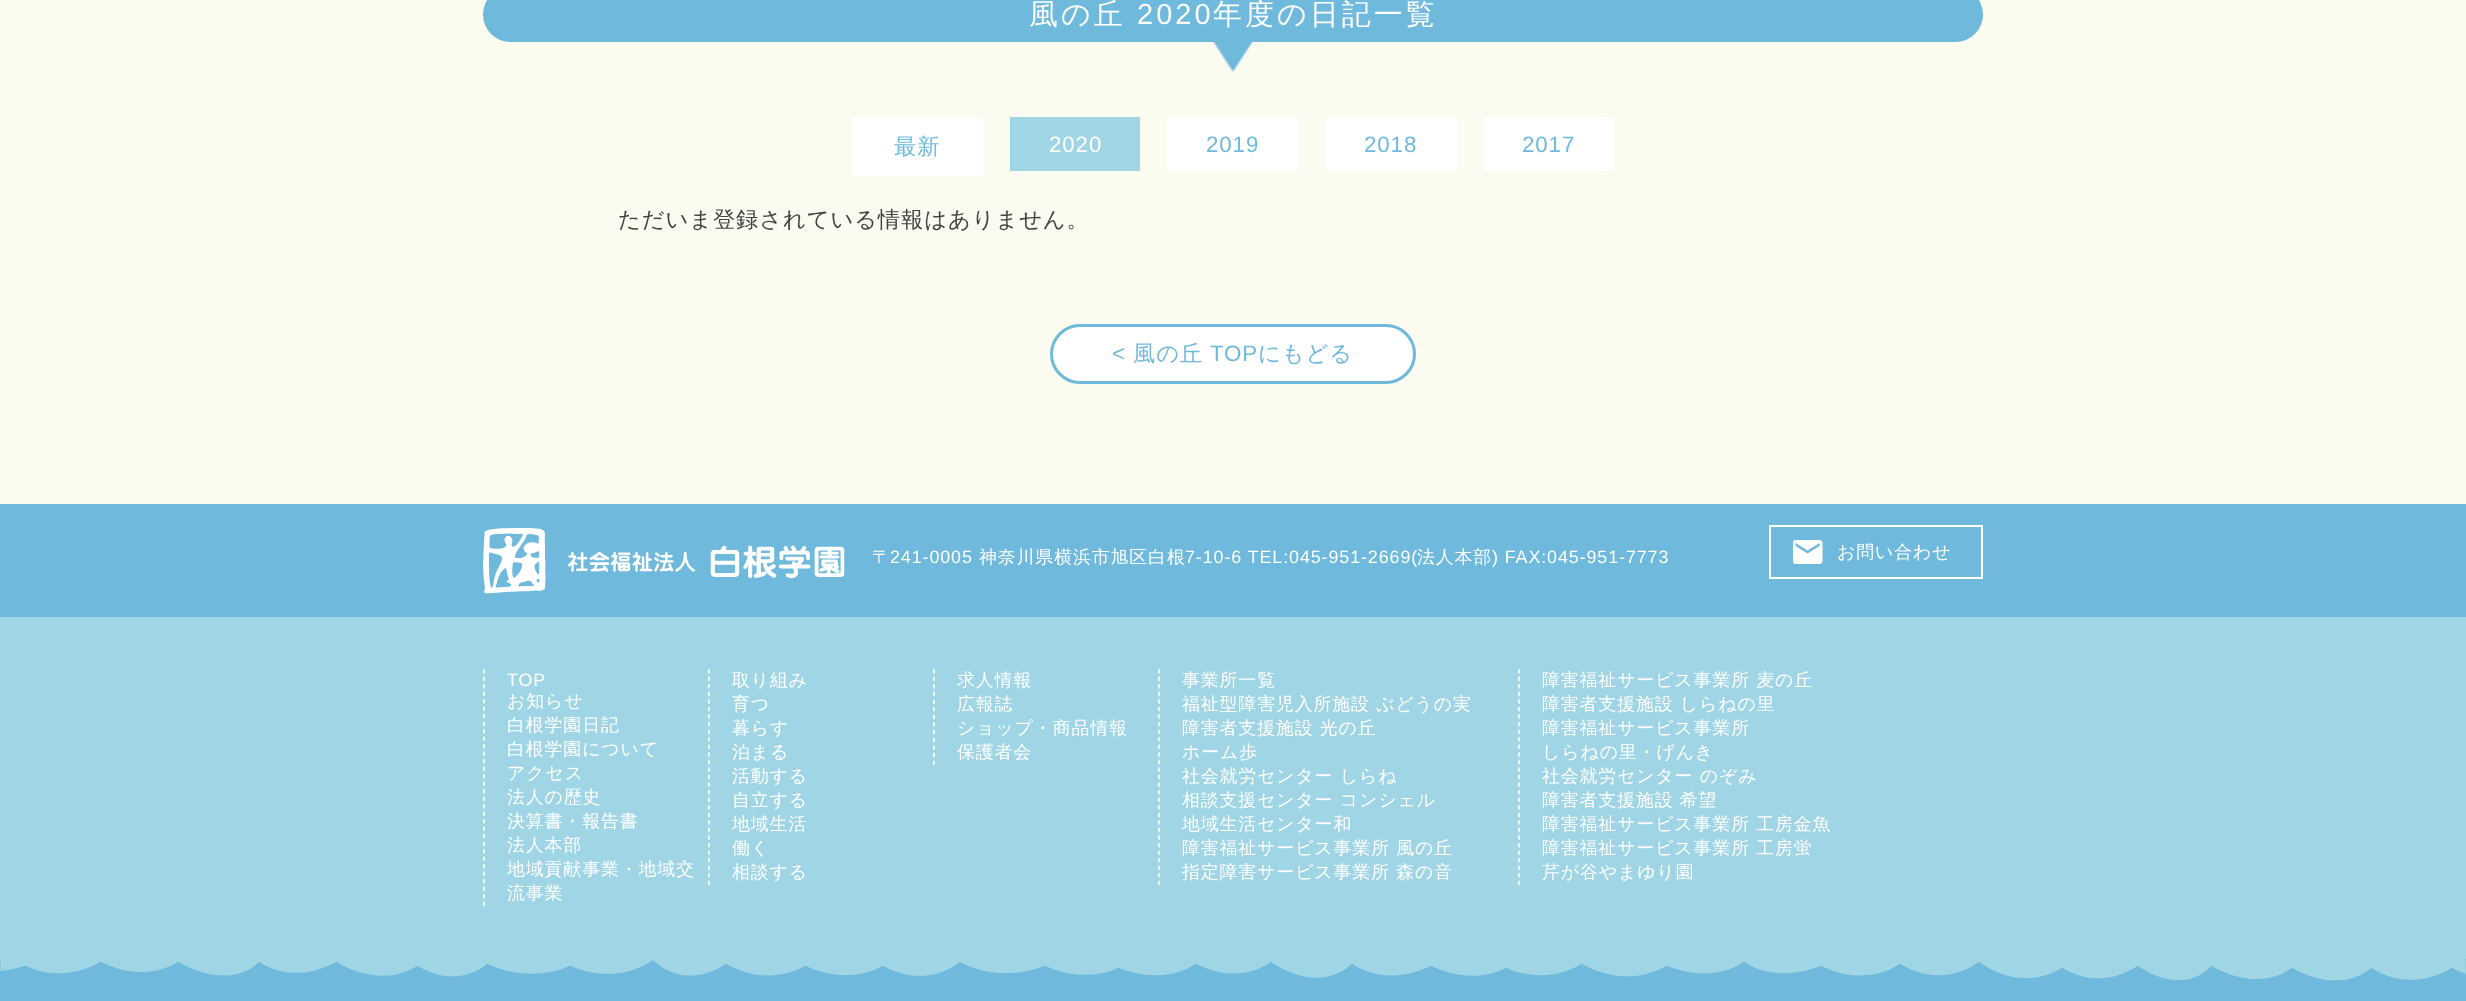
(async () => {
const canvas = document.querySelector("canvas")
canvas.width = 2466
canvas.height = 1001
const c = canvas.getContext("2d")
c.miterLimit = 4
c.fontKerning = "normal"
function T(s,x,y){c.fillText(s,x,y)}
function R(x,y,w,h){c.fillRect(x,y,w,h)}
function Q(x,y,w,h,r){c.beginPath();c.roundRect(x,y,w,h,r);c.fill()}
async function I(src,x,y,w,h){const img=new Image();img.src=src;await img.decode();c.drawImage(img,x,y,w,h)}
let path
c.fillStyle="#fbfbf0"
R(0,0,2466,1001)
c.fillStyle="#6eb9dc"
Q(483,-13,1500,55,27.5)
c.letterSpacing="3px"
c.font="500 29px WenQuanYi Zen Hei"
c.fillStyle="#fff"
T("風の丘",1029,24)
c.font="29px Liberation Sans"
T("2020",1137,24)
c.font="500 29px WenQuanYi Zen Hei"
T("年度の日記一覧",1213,24)
await I("1.png",1213,42,40,30)
R(852,117,131,59)
c.letterSpacing="0.9px"
c.font="500 22.3px WenQuanYi Zen Hei"
c.fillStyle="#6eb9dc"
T("最新",894,154)
c.fillStyle="#a0d5e6"
R(1010,117,130,54)
c.font="22.3px Liberation Sans"
c.fillStyle="#fff"
T("2020",1049,152)
R(1167,117,132,54)
c.fillStyle="#6eb9dc"
T("2019",1206,152)
c.fillStyle="#fff"
R(1326,117,131,54)
c.fillStyle="#6eb9dc"
T("2018",1364,152)
c.fillStyle="#fff"
R(1484,117,130,54)
c.fillStyle="#6eb9dc"
T("2017",1522,152)
c.font="500 22.3px WenQuanYi Zen Hei"
c.fillStyle="#444"
T("ただいま登録されている情報はありません。",618,227)
c.fillStyle="#fff"
c.beginPath()
c.roundRect(1051.5,325.5,363,57,28.5)
c.fill()
c.strokeStyle="#6eb9dc"
c.lineWidth=3
c.stroke()
c.font="22.3px Liberation Sans"
c.fillStyle="#6eb9dc"
T("<",1112,361)
c.font="500 22.3px WenQuanYi Zen Hei"
T("風の丘",1133,361)
c.font="22.3px Liberation Sans"
T("TOP",1210,361)
c.font="500 22.3px WenQuanYi Zen Hei"
T("にもどる",1258,361)
R(0,504,2466,113)
await I("2.png",483,528,362,66)
c.font="500 17.9px WenQuanYi Zen Hei"
c.fillStyle="#fff"
T("〒",872,563)
c.font="17.9px Liberation Sans"
T("241-0005",890,563)
c.font="500 17.9px WenQuanYi Zen Hei"
T("神奈川県横浜市旭区白根",979,563)
c.font="17.9px Liberation Sans"
T("7-10-6 TEL:045-951-2669(",1185,563)
c.font="500 17.9px WenQuanYi Zen Hei"
T("法人本部",1417,563)
c.font="17.9px Liberation Sans"
T(") FAX:045-951-7773",1492,563)
await I("3.png",1793,540,30,24)
c.strokeStyle="#fff"
c.lineWidth=2
c.strokeRect(1770,526,212,52)
c.font="500 17.9px WenQuanYi Zen Hei"
T("お問い合わせ",1837,558)
c.fillStyle="#a0d5e6"
R(0,617,2466,342)
path = new Path2D("M484 669v237")
c.lineWidth=1.5
c.setLineDash([4.5,3])
c.stroke(path)
c.font="17.9px Liberation Sans"
c.fillStyle="#fff"
T("TOP",507,686)
c.font="500 17.9px WenQuanYi Zen Hei"
T("お知らせ",507,707)
T("白根学園日記",507,731)
T("白根学園について",507,755)
T("アクセス",507,779)
T("法人の歴史",507,803)
T("決算書・報告書",507,827)
T("法人本部",507,851)
T("地域貢献事業・地域交",507,875)
T("流事業",507,899)
path = new Path2D("M709 669v216")
c.setLineDash([4.5,3.06])
c.stroke(path)
T("取り組み",732,686)
T("育つ",732,710)
T("暮らす",732,734)
T("泊まる",732,758)
T("活動する",732,782)
T("自立する",732,806)
T("地域生活",732,830)
T("働く",732,854)
T("相談する",732,878)
path = new Path2D("M934 669v96")
c.setLineDash([4.5,3.12])
c.stroke(path)
T("求人情報",957,686)
T("広報誌",957,710)
T("ショップ・商品情報",957,734)
T("保護者会",957,758)
path = new Path2D("M1159 669v216")
c.setLineDash([4.5,3.06])
c.stroke(path)
T("事業所一覧",1182,686)
T("福祉型障害児入所施設 ぶどうの実",1182,710)
T("障害者支援施設 光の丘",1182,734)
T("ホーム歩",1182,758)
T("社会就労センター しらね",1182,782)
T("相談支援センター コンシェル",1182,806)
T("地域生活センター和",1182,830)
T("障害福祉サービス事業所 風の丘",1182,854)
T("指定障害サービス事業所 森の音",1182,878)
path = new Path2D("M1519 669v216")
c.stroke(path)
T("障害福祉サービス事業所 麦の丘",1542,686)
T("障害者支援施設 しらねの里",1542,710)
T("障害福祉サービス事業所",1542,734)
T("しらねの里・げんき",1542,758)
T("社会就労センター のぞみ",1542,782)
T("障害者支援施設 希望",1542,806)
T("障害福祉サービス事業所 工房金魚",1542,830)
T("障害福祉サービス事業所 工房蛍",1542,854)
T("芹が谷やまゆり園",1542,878)
c.fillStyle="#6eb9dc"
R(0,959,2466,42)
await I("4.png",0,959,2466,22)
})()
